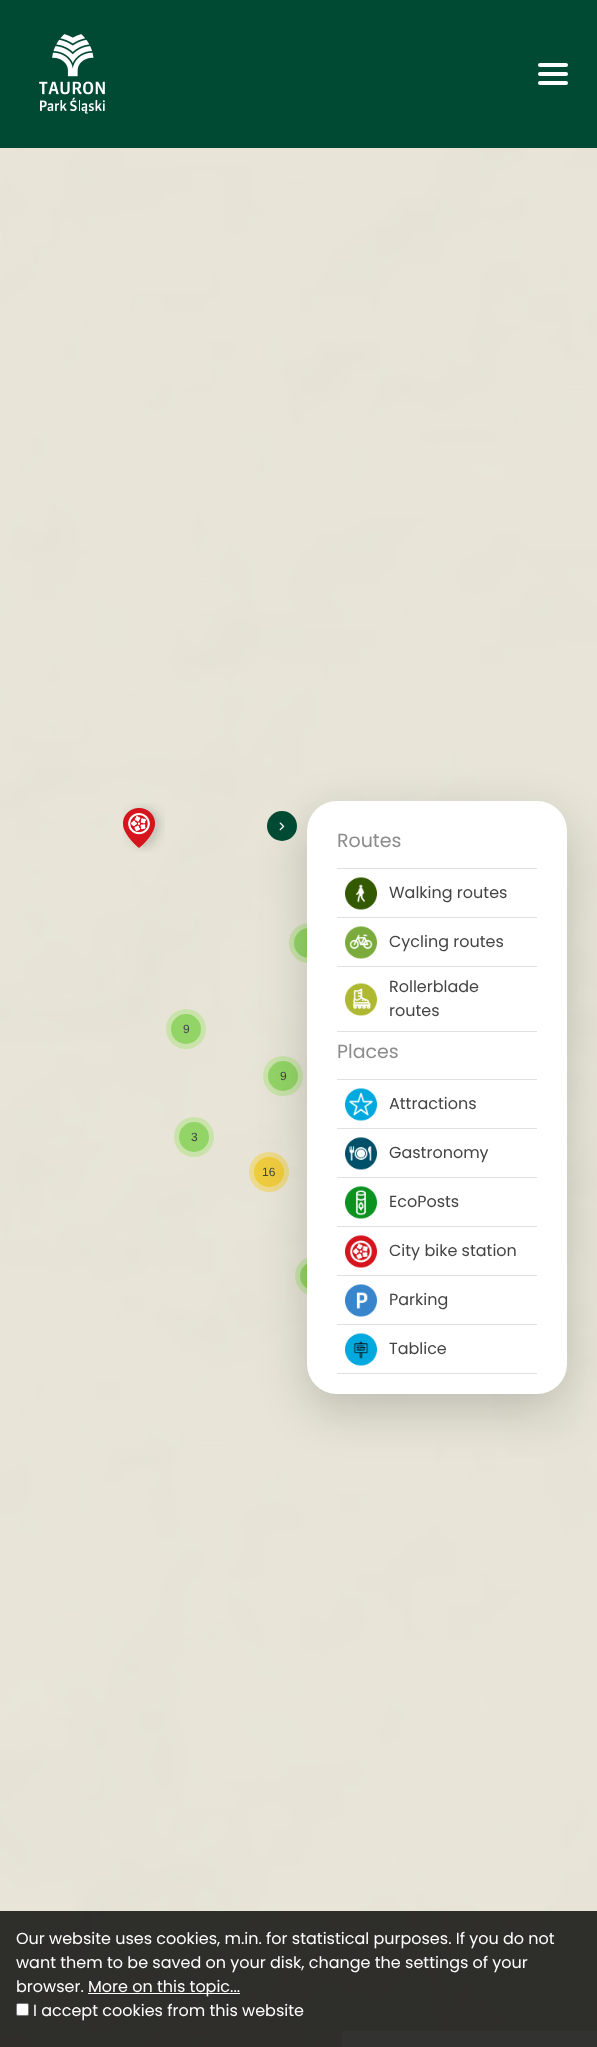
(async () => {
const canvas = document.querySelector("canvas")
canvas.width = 597
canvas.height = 2047
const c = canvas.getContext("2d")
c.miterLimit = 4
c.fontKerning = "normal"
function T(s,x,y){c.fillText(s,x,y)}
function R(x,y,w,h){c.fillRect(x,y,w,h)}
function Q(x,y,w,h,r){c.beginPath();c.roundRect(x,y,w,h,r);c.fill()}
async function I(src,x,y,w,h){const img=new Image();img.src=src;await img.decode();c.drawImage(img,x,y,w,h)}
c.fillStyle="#fff"
R(0,0,597,2047)
c.fillStyle="#004933"
R(0,0,597,148)
await I("1.png",39,34,66,80)
c.fillStyle="#fff"
Q(538,63,30,4,2)
Q(538,72,30,4,2)
Q(538,81,30,4,2)
await I("2.png",0,148,597,1899)
await I("3.png",123,803,42,49)
await I("4.png",123,808,32,40)
c.fillStyle="#c9e3aa"
c.beginPath()
c.arc(309,943,20,0,7)
c.fill()
c.fillStyle="#92d566"
c.beginPath()
c.arc(309,943,15,0,7)
c.fill()
c.fillStyle="#c9e3aa"
c.beginPath()
c.arc(186,1029,20,0,7)
c.fill()
c.fillStyle="#92d566"
c.beginPath()
c.arc(186,1029,15,0,7)
c.fill()
c.font="12px Liberation Sans"
c.fillStyle="#444"
T("9",183,1033)
c.fillStyle="#c9e3aa"
c.beginPath()
c.arc(283,1076,20,0,7)
c.fill()
c.fillStyle="#92d566"
c.beginPath()
c.arc(283,1076,15,0,7)
c.fill()
c.fillStyle="#444"
T("9",280,1080)
c.fillStyle="#c9e3aa"
c.beginPath()
c.arc(194,1137,20,0,7)
c.fill()
c.fillStyle="#92d566"
c.beginPath()
c.arc(194,1137,15,0,7)
c.fill()
c.fillStyle="#444"
T("3",191,1141)
c.fillStyle="#edda8a"
c.beginPath()
c.arc(269,1172,20,0,7)
c.fill()
c.fillStyle="#efcc3e"
c.beginPath()
c.arc(269,1172,15,0,7)
c.fill()
c.fillStyle="#444"
T("16",262,1176)
c.fillStyle="#b5e28c99"
c.beginPath()
c.arc(315,1276,20,0,7)
c.fill()
c.fillStyle="#92d566"
c.beginPath()
c.arc(315,1276,15,0,7)
c.fill()
c.fillStyle="#f8f7f3"
R(342,2031,255,16)
c.fillStyle="#0000002e"
c.filter="blur(24px)"
c.beginPath()
c.roundRect(307,817,260,593,30)
c.fill()
c.filter="none"
c.fillStyle="#fff"
Q(307,801,260,593,30)
c.fillStyle="#004933"
c.beginPath()
c.arc(282,826,15,0,7)
c.fill()
await I("5.png",279,822,6,9)
c.font="19px Poppins"
c.fillStyle="#8c8c8c"
T("Routes",337,847)
c.fillStyle="#e0e0e0"
R(337,868,200,1)
R(337,917,200,1)
await I("6.png",345,877,32,33)
c.font="16px Poppins"
c.fillStyle="#444"
T("Walking routes",389,898)
c.fillStyle="#e0e0e0"
R(337,966,200,1)
await I("7.png",345,926,32,33)
c.fillStyle="#444"
T("Cycling routes",389,947)
c.fillStyle="#e0e0e0"
R(337,1031,200,1)
await I("8.png",345,983,32,33)
c.fillStyle="#444"
T("Rollerblade",389,992)
T("routes",389,1016)
c.font="19px Poppins"
c.fillStyle="#8c8c8c"
T("Places",337,1058)
c.fillStyle="#e0e0e0"
R(337,1079,200,1)
R(337,1128,200,1)
await I("9.png",345,1088,32,33)
c.font="16px Poppins"
c.fillStyle="#444"
T("Attractions",389,1109)
c.fillStyle="#e0e0e0"
R(337,1177,200,1)
await I("10.png",345,1137,32,33)
c.fillStyle="#444"
T("Gastronomy",389,1158)
c.fillStyle="#e0e0e0"
R(337,1226,200,1)
await I("11.png",345,1186,32,33)
c.fillStyle="#444"
T("EcoPosts",389,1207)
c.fillStyle="#e0e0e0"
R(337,1275,200,1)
await I("12.png",345,1235,32,33)
c.fillStyle="#444"
T("City bike station",389,1256)
c.fillStyle="#e0e0e0"
R(337,1324,200,1)
await I("13.png",345,1284,32,33)
c.fillStyle="#444"
T("Parking",389,1305)
c.fillStyle="#e0e0e0"
R(337,1373,200,1)
await I("14.png",345,1333,32,33)
c.fillStyle="#444"
T("Tablice",389,1354)
c.fillStyle="#000000cc"
R(0,1911,597,136)
c.fillStyle="#fff"
T("Our website uses cookies, m.in. for statistical purposes. If you do not",16,1944)
T("want them to be saved on your disk, change the settings of your",16,1968)
T("browser.",16,1992)
R(88,1993,152,1)
T("More on this topic...",88,1992)
c.beginPath()
c.roundRect(16.5,2003.5,12,12,1.5)
c.fill()
c.strokeStyle="#767676"
c.stroke()
T("I accept cookies from this website",33,2016)
})()
